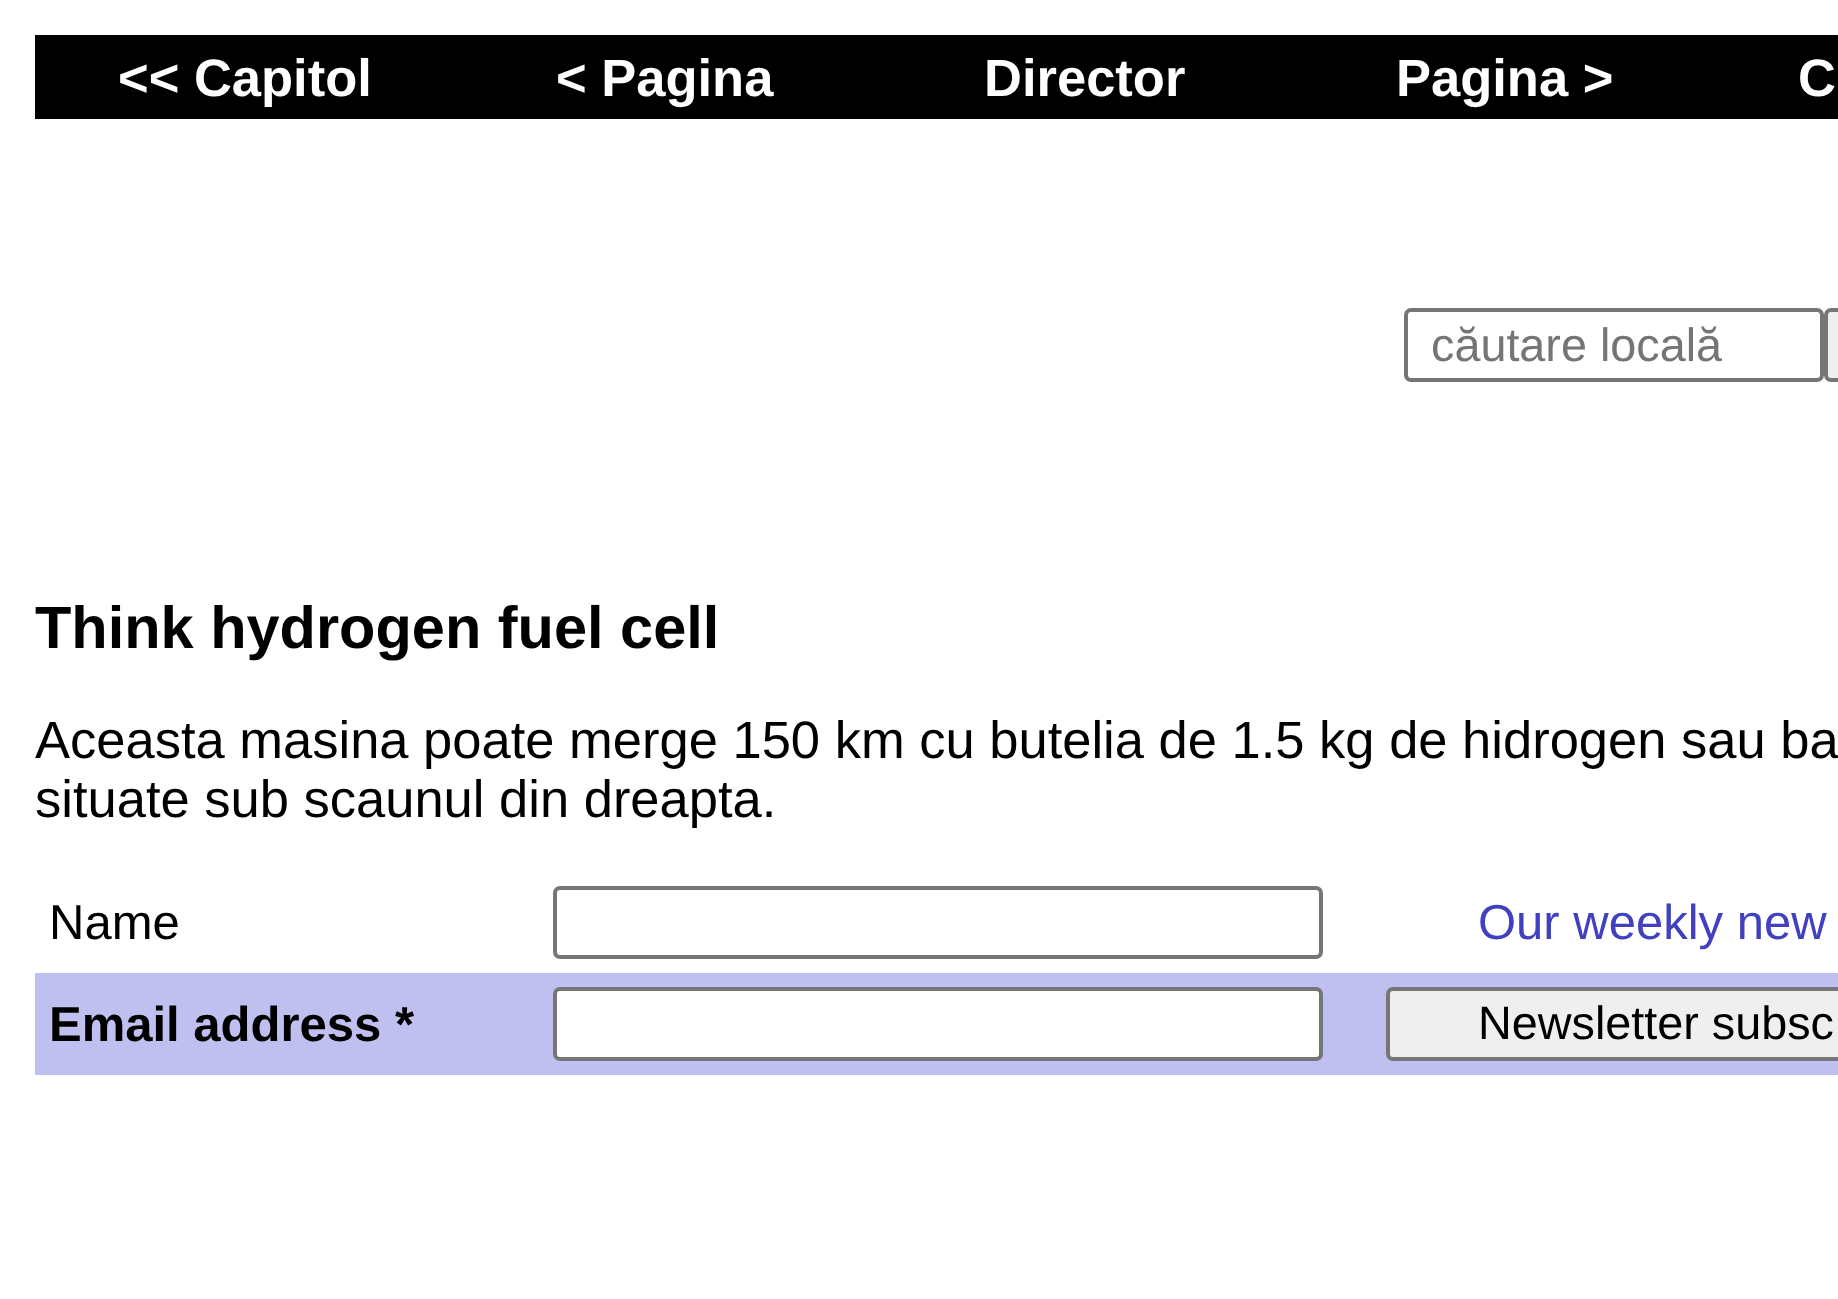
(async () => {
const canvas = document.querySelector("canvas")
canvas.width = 1838
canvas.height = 1299
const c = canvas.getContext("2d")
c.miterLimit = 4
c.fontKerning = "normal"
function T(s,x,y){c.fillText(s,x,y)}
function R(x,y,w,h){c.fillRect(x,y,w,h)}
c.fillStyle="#fff"
R(0,0,1838,1299)
c.fillStyle="#000"
R(35,35,1803,84)
c.font="bold 52.5px Liberation Sans"
c.fillStyle="#fff"
T("<< Capitol",118,96)
T("< Pagina",556,96)
T("Director",984,96)
T("Pagina >",1396,96)
T("C",1798,96)
c.beginPath()
c.roundRect(1406,310,416,70,5)
c.strokeStyle="#767676"
c.lineWidth=4
c.stroke()
c.font="46.75px Liberation Sans"
c.fillStyle="#757575"
T("căutare locală",1431,361)
c.fillStyle="#efefef"
c.beginPath()
c.roundRect(1826,310,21,70,5)
c.fill()
c.stroke()
c.font="bold 59.5px Liberation Sans"
c.fillStyle="#000"
T("Think hydrogen fuel cell",35,648)
c.font="52.5px Liberation Sans"
T("Aceasta masina poate merge 150 km cu butelia de 1.5 kg de hidrogen sau ba",35,758)
T("situate sub scaunul din dreapta.",35,817)
c.font="49px Liberation Sans"
T("Name",49,939)
c.beginPath()
c.roundRect(555,888,766,69,5)
c.stroke()
c.fillStyle="#4040c0"
T("Our weekly new",1478,939)
c.fillStyle="#c0c0f0"
R(35,973,1803,102)
c.font="bold 49px Liberation Sans"
c.fillStyle="#000"
T("Email address *",49,1041)
c.fillStyle="#fff"
c.beginPath()
c.roundRect(555,989,766,70,5)
c.fill()
c.stroke()
c.fillStyle="#efefef"
c.beginPath()
c.roundRect(1388,989,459,70,5)
c.fill()
c.stroke()
c.font="46.75px Liberation Sans"
c.fillStyle="#000"
T("Newsletter subsc",1478,1039)
})()
